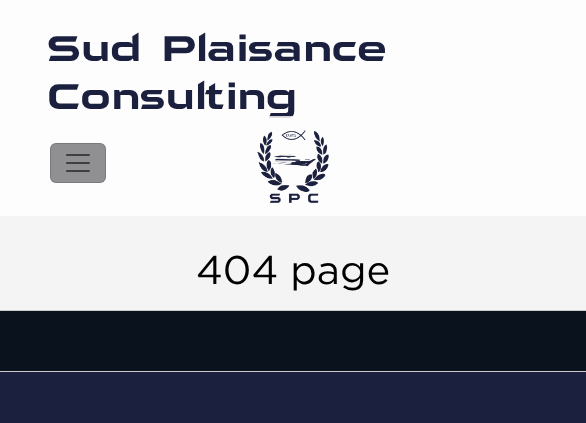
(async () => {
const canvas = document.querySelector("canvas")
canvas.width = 586
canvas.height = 423
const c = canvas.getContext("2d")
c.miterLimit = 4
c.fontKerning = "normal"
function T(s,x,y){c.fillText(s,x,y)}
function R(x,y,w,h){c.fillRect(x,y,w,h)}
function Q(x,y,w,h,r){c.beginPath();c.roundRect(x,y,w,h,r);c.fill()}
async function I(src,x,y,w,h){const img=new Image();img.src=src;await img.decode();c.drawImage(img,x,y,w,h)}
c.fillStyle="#f4f4f4"
R(0,0,586,423)
c.fillStyle="#fdfdfd"
R(0,0,586,116)
c.font="bold 40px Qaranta"
c.fillStyle="#1b203e"
T("Sud Plaisance",45,61)
T("Consulting",45,109)
c.fillStyle="#ffffffcc"
R(0,116,586,100)
c.fillStyle="#909093"
Q(50,143,56,40,6)
c.beginPath()
c.roundRect(50.5,143.5,55,39,5.5)
c.strokeStyle="#00000026"
c.stroke()
await I("1.png",66,154,24,18)
await I("2.png",257,130,72,73)
c.font="40px Gotham"
c.fillStyle="#000"
T("404 page",196,284)
c.fillStyle="#09121d"
R(0,311,586,60)
c.fillStyle="#ccc"
R(0,310,586,1)
c.fillStyle="#1b203e"
R(0,372,586,51)
c.fillStyle="#ccc"
R(0,371,586,1)
})()
